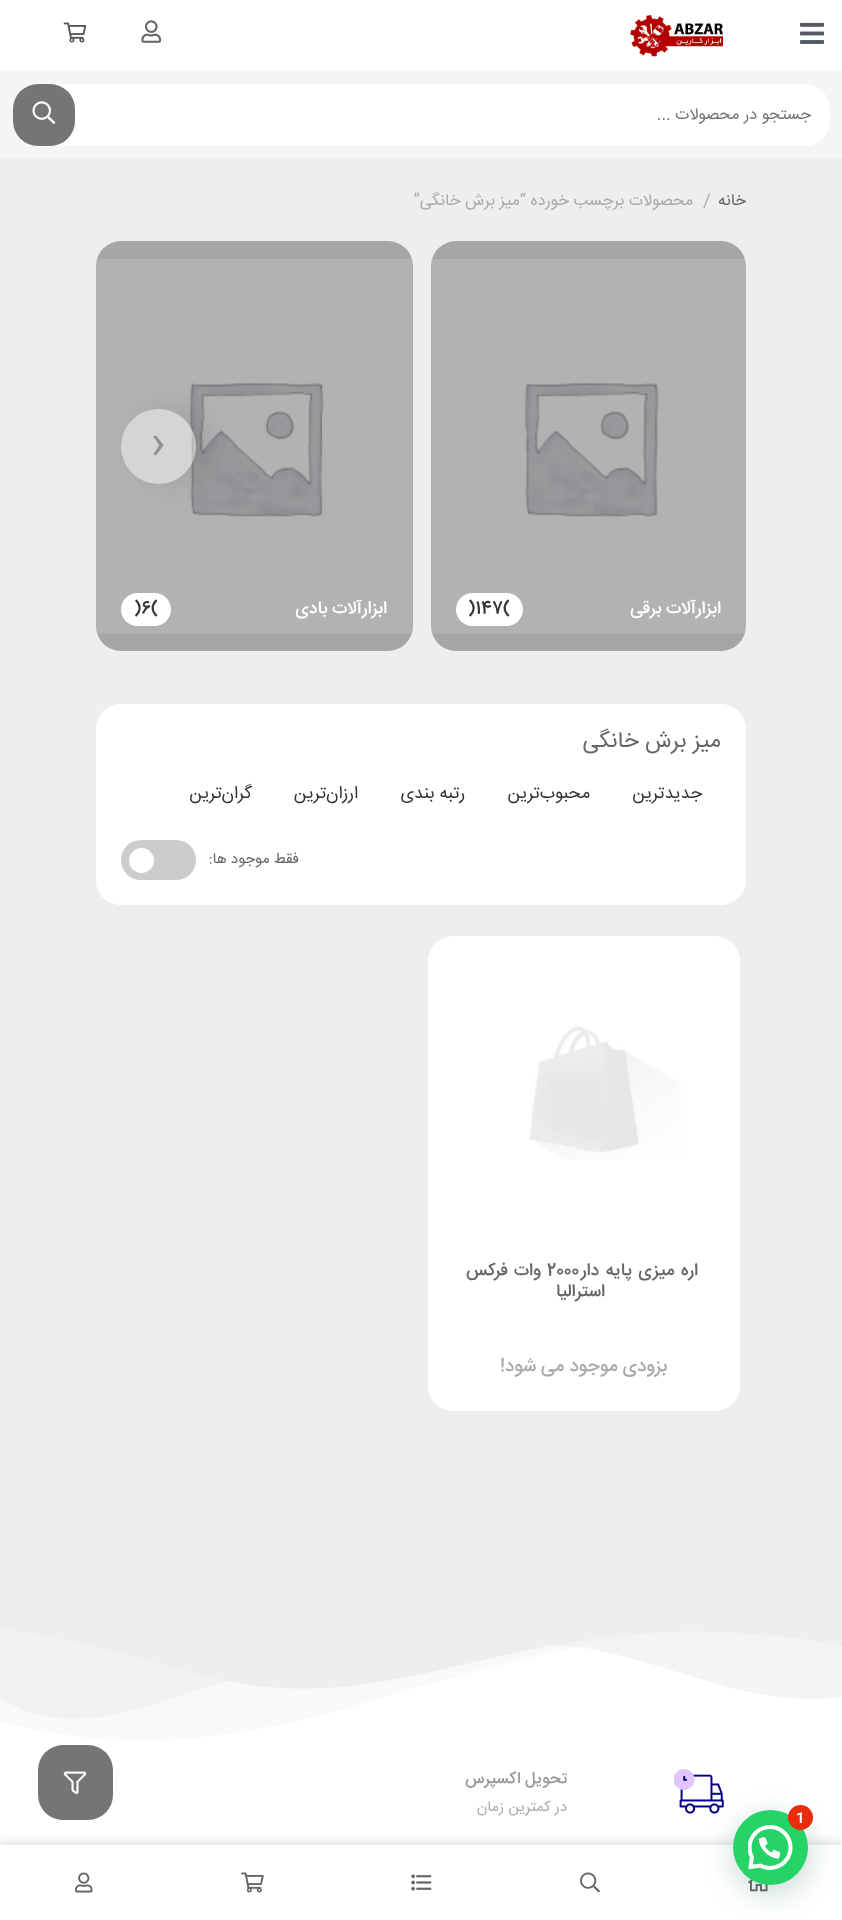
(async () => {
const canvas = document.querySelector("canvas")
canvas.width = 842
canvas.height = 1920
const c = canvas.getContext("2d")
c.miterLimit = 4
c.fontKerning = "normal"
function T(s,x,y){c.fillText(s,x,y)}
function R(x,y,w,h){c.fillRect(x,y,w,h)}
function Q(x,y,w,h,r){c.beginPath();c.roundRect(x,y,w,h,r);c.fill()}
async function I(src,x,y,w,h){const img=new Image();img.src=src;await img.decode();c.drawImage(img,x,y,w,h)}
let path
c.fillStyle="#eee"
R(0,0,842,1920)
c.fillStyle="#fff"
R(0,0,842,71)
await I("1.png",800,22,25,22)
await I("2.png",630,15,93,42)
await I("3.png",141,20,21,23)
await I("4.png",63,22,24,21)
c.fillStyle="#f5f5f5"
R(0,71,842,88)
c.fillStyle="#fff"
Q(13,84,817,62,25)
c.direction="rtl"
c.font="16.25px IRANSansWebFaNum"
c.fillStyle="#757575"
T("جستجو در محصولات ...",811,119)
Q(13,84,62,62,25)
await I("5.png",32,101,24,23)
c.save()
c.beginPath()
c.roundRect(96,190,650,26,13)
c.clip()
c.fillStyle="#666"
T("خانه",746,205)
c.restore()
c.direction="ltr"
c.font="17.5px IRANSansWebFaNum"
c.fillStyle="#aaa"
T("/",703,206)
c.direction="rtl"
c.font="16.25px IRANSansWebFaNum"
T("محصولات برچسب خورده",693,205)
T("“میز برش خانگی”",526,205)
await I("7.png",96,259,317,375)
c.fillStyle="#0000004d"
Q(96,241,317,410,25)
c.save()
path = new Path2D("M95 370h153v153h-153zm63.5 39c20.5 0 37.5 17 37.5 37.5c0 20.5-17 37.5-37.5 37.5c-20.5 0-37.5-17-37.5-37.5c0-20.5 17-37.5 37.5-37.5z")
c.clip(path,"evenodd")
c.fillStyle="#00000017"
c.filter="blur(12.5px)"
c.beginPath()
c.roundRect(134,409,75,75,37.5)
c.fill()
c.filter="none"
c.restore()
c.fillStyle="#ffffff73"
c.beginPath()
c.arc(158.5,446.5,37.5,0,7)
c.fill()
c.direction="ltr"
c.font="45px IRANSansWebFaNum"
c.fillStyle="#909090"
T("›",151,456)
await I("6.png",431,259,316,375)
c.fillStyle="#0000004d"
Q(431,241,315,410,25)
c.direction="rtl"
c.font="500 17.5px IRANSansWebFaNum"
c.fillStyle="#fff"
T("ابزارآلات برقی",721,613)
Q(456,593,67,33,16.5)
c.direction="ltr"
c.fillStyle="#333"
T(")147(",468,613)
c.direction="rtl"
c.fillStyle="#fff"
T("ابزارآلات بادی",387,613)
Q(121,593,50,33,16.5)
c.direction="ltr"
c.fillStyle="#333"
T(")6(",134,613)
c.fillStyle="#fff"
Q(96,704,650,201,25)
c.direction="rtl"
c.font="22.5px IRANSansWebFaNum"
c.fillStyle="#666"
T("میز برش خانگی",721,747)
c.font="17.5px IRANSansWebFaNum"
c.fillStyle="#333"
T("جدیدترین",702,798)
T("محبوب‌ترین",590,798)
T("رتبه بندی",465,798)
T("ارزان‌ترین",358,798)
T("گران‌ترین",252,798)
c.font="15px IRANSansWebFaNum"
c.fillStyle="#666"
T("فقط موجود ها:",299,863)
c.fillStyle="#ccc"
Q(121,840,75,40,20)
c.fillStyle="#fff"
c.beginPath()
c.arc(141.5,860.5,12.5,0,7)
c.fill()
Q(428,936,312,475,25)
await I("8.png",529,1026,152,134)
c.letterSpacing="-0.4px"
c.wordSpacing="2px"
c.font="500 17.5px IRANSansWebFaNum"
c.fillStyle="#666"
T("اره میزی پایه دار",698,1275)
c.wordSpacing="0px"
c.direction="ltr"
T("2000",547,1275)
c.wordSpacing="2px"
c.direction="rtl"
T("وات فرکس",541,1275)
c.wordSpacing="0px"
T("استرالیا",605,1296)
c.letterSpacing="0px"
c.font="500 18.75px IRANSansWebFaNum"
c.fillStyle="#aaa"
T("بزودی موجود می شود!",667,1371)
c.fillStyle="#fff"
R(0,1629,842,216)
c.fillStyle="#757575"
Q(38,1745,75,75,25)
await I("9.png",63,1771,24,24)
await I("10.png",0,1616,842,124)
await I("11.png",674,1769,50,45)
c.font="500 16.25px IRANSansWebFaNum"
c.fillStyle="#999"
T("تحویل اکسپرس",567,1783)
c.font="15px IRANSansWebFaNum"
c.fillStyle="#aaa"
T("در کمترین زمان",567,1811)
c.fillStyle="#0000001a"
c.filter="blur(4px)"
c.beginPath()
c.rect(0,1841,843,75)
c.fill()
c.filter="none"
c.fillStyle="#fff"
R(0,1845,842,75)
await I("13.png",748,1879,20,13)
c.fillStyle="#075e543d"
c.filter="blur(15px)"
c.beginPath()
c.roundRect(734,1818,75,75,37.5)
c.fill()
c.filter="none"
c.fillStyle="#25d366"
c.beginPath()
c.arc(770.5,1847.5,37.5,0,7)
c.fill()
await I("12.png",748,1825,45,45)
c.fillStyle="#e82c0c"
c.beginPath()
c.arc(800.5,1817.5,12.5,0,7)
c.fill()
c.direction="ltr"
c.font="600 15px Roboto"
c.fillStyle="#fff"
T("1",796,1823)
await I("14.png",580,1872,20,21)
await I("15.png",411,1874,21,17)
await I("16.png",241,1872,23,21)
await I("17.png",75,1872,18,21)
})()
